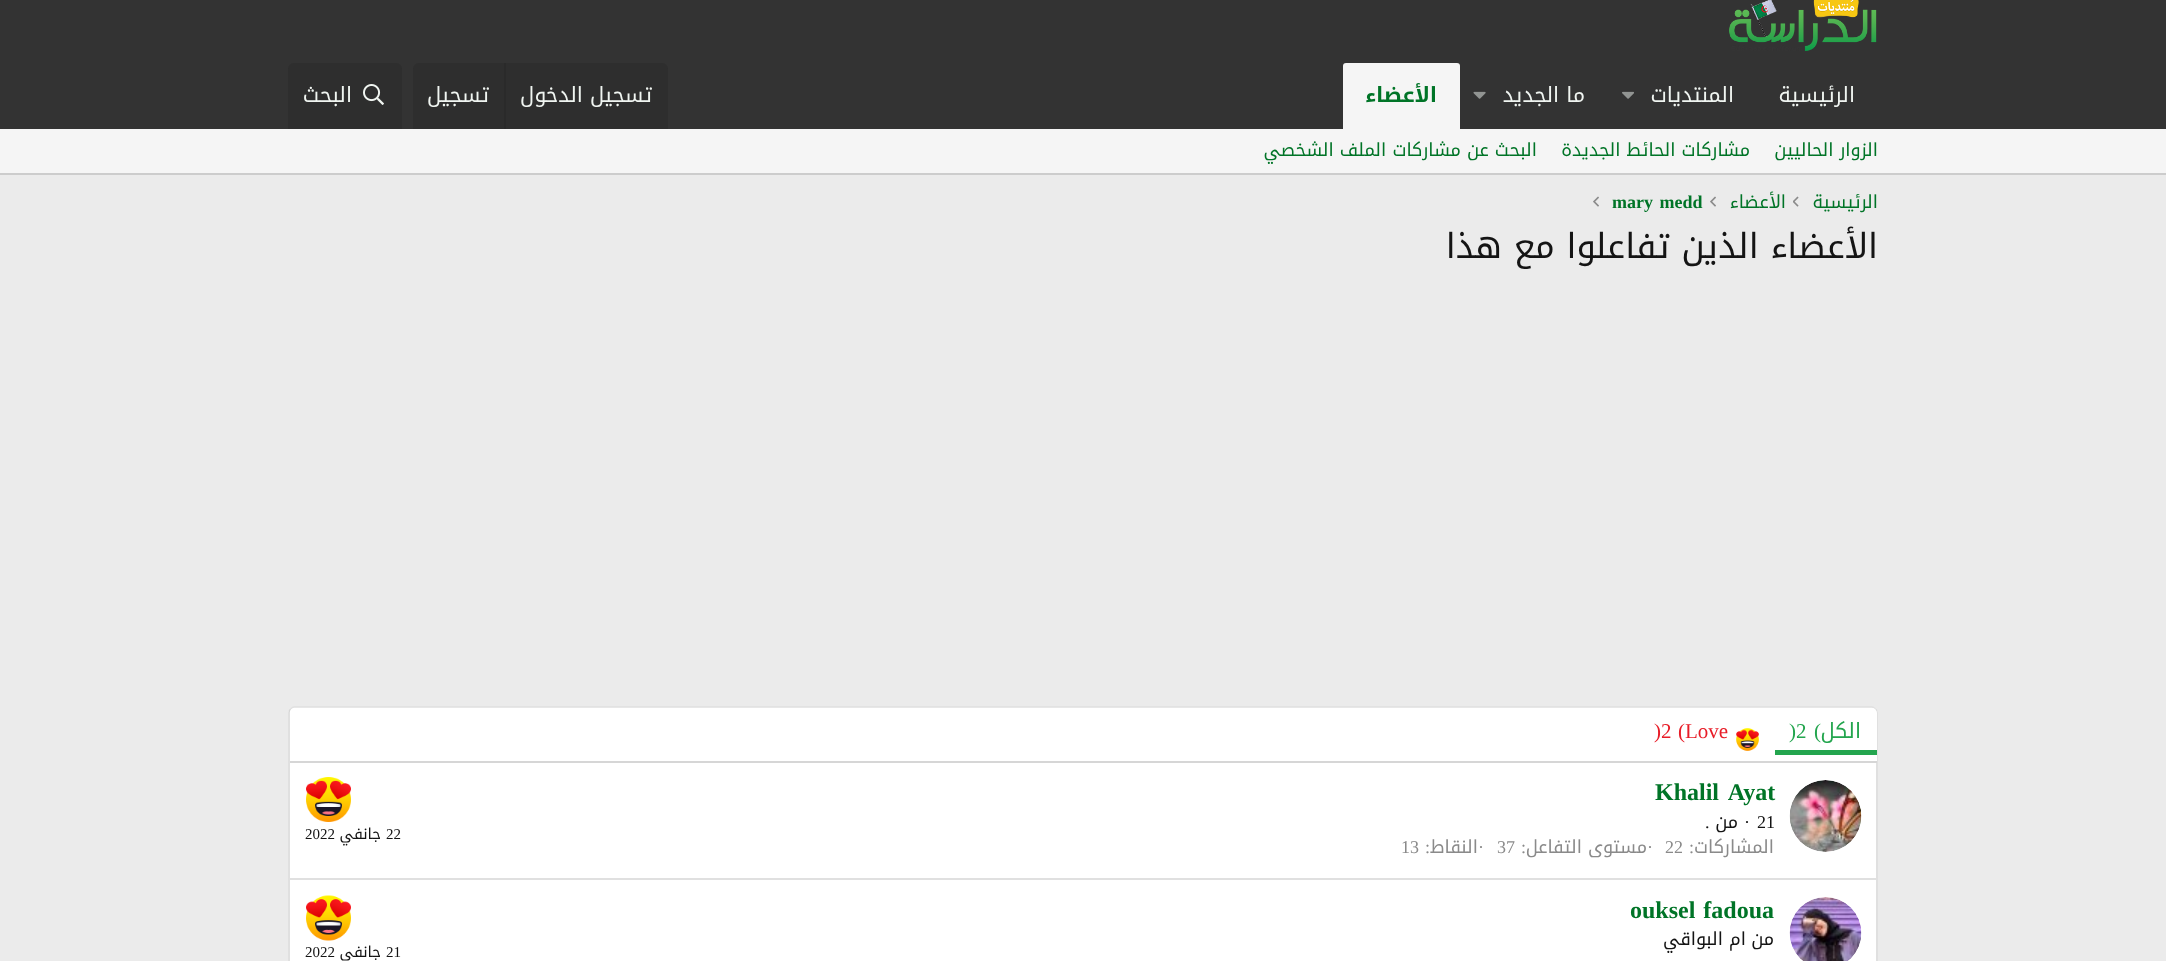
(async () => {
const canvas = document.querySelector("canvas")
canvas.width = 2166
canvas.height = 961
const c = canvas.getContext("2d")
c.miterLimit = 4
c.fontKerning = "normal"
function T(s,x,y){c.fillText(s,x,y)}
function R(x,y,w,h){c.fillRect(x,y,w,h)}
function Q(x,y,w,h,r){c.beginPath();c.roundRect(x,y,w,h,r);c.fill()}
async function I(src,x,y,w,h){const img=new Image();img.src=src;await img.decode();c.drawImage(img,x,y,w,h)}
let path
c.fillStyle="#ebebeb"
R(0,0,2166,961)
c.fillStyle="#333"
R(0,0,2166,129)
await I("1.png",1729,0,148,51)
c.direction="rtl"
c.font="21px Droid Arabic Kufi"
c.fillStyle="#f0f5f1"
T("الرئيسية",1855,102)
T("المنتديات",1734,102)
await I("2.png",1622,91,12,8)
T("ما الجديد",1585,102)
await I("3.png",1473,91,13,8)
c.fillStyle="#f5f5f5"
c.beginPath()
c.roundRect(1343,63,117,66,[3,3,0,0])
c.fill()
c.font="bold 21px Droid Arabic Kufi"
c.fillStyle="#007427"
T("الأعضاء",1437,102)
c.fillStyle="#2e2e2e"
c.beginPath()
c.roundRect(413,63,255,66,[6,6,0,0])
c.fill()
c.font="21px Droid Arabic Kufi"
c.fillStyle="#f0f5f1"
T("تسجيل الدخول",652,102)
c.fillStyle="#2a2a2a"
R(504,63,2,66)
c.fillStyle="#f0f5f1"
T("تسجيل",489,102)
c.fillStyle="#2e2e2e"
c.beginPath()
c.roundRect(288,63,114,66,[6,6,0,0])
c.fill()
await I("4.png",363,84,21,21)
c.fillStyle="#f0f5f1"
T("البحث",352,102)
c.fillStyle="#f5f5f5"
R(0,129,2166,44)
c.fillStyle="#ccc"
R(0,173,2166,2)
c.font="18px Droid Arabic Kufi"
c.fillStyle="#007427"
T("الزوار الحاليين",1878,156)
T("مشاركات الحائط الجديدة",1750,156)
T("البحث عن مشاركات الملف الشخصي",1537,156)
T("الرئيسية",1878,208)
await I("5.png",1793,196,6,11)
T("الأعضاء",1786,208)
await I("6.png",1710,196,6,11)
c.wordSpacing="2px"
c.direction="ltr"
c.font="bold 18px Liberation Serif"
T("mary medd",1612,208)
await I("6.png",1593,196,6,11)
c.wordSpacing="0px"
c.direction="rtl"
c.font="34.5px Droid Arabic Kufi"
c.fillStyle="#141414"
T("الأعضاء الذين تفاعلوا مع هذا",1878,258)
c.fillStyle="#fff"
Q(288,707,1590,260,6)
path = new Path2D("M290.5 709c1-1 2-2 3.5-2h1578c1.5 0 2.5 1 3.5 2")
c.strokeStyle="#e0e0e0"
c.lineWidth=1.5
c.stroke(path)
path = new Path2D("M1875.5 709c1 1 1.5 2 1.5 3.5v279c0 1.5-.5 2.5-1.5 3.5")
c.strokeStyle="#d6d6d6"
c.stroke(path)
path = new Path2D("M290.5 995c-1-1-1.5-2-1.5-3.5v-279c0-1.5 .5-2.5 1.5-3.5")
c.stroke(path)
c.beginPath()
c.roundRect(290,708,1587,54,[5,5,0,0])
c.fill()
c.fillStyle="#d6d6d6"
R(290,761,1587,2)
c.fillStyle="#23a54e"
R(1775,750,102,5)
c.font="21px Droid Arabic Kufi"
T("الكل",1861,738)
c.direction="ltr"
c.font="21px Liberation Serif"
T("(",1814,738)
T(")2",1789,738)
await I("7.png",1736,728,23,23)
c.fillStyle="#e81c27"
T("Love",1685,738)
T("(",1678,738)
T(")2",1654,738)
await I("8.png",1789,780,73,72)
c.wordSpacing="4px"
c.font="bold 24px Liberation Serif"
c.fillStyle="#007427"
T("Khalil Ayat",1655,800)
c.wordSpacing="0px"
c.font="18px Liberation Serif"
c.fillStyle="#141414"
T("21",1757,828)
T("·",1744,828)
c.direction="rtl"
c.font="18px Droid Arabic Kufi"
T("من",1738,828)
c.direction="ltr"
c.font="18px Liberation Serif"
T(".",1705,828)
c.direction="rtl"
c.font="18px Droid Arabic Kufi"
c.fillStyle="#8a8a8a"
T("المشاركات",1774,853)
c.direction="ltr"
c.font="18px Liberation Serif"
T(":",1689,853)
T("22",1665,853)
T("·",1647,853)
c.direction="rtl"
c.font="18px Droid Arabic Kufi"
T("مستوى التفاعل",1647,853)
c.direction="ltr"
c.font="18px Liberation Serif"
T(":",1521,853)
T("37",1497,853)
T("·",1478,853)
c.direction="rtl"
c.font="18px Droid Arabic Kufi"
T("النقاط",1478,853)
c.direction="ltr"
c.font="18px Liberation Serif"
T(":",1425,853)
T("13",1401,853)
await I("9.png",306,777,45,45)
c.font="15px Liberation Serif"
c.fillStyle="#141414"
T("22",386,839)
c.direction="rtl"
c.font="15px Droid Arabic Kufi"
T("جانفي",381,839)
c.direction="ltr"
c.font="15px Liberation Serif"
T("2022",305,839)
c.fillStyle="#e0e0e0"
R(290,878,1587,2)
await I("10.png",1789,897,73,64)
c.wordSpacing="2px"
c.font="bold 24px Liberation Serif"
c.fillStyle="#007427"
T("ouksel fadoua",1630,918)
c.wordSpacing="0px"
c.direction="rtl"
c.font="18px Droid Arabic Kufi"
c.fillStyle="#141414"
T("من",1774,945)
T("ام البواقي",1746,945)
await I("11.png",306,895,45,46)
c.direction="ltr"
c.font="15px Liberation Serif"
T("21",386,957)
c.direction="rtl"
c.font="15px Droid Arabic Kufi"
T("جانفي",381,957)
c.direction="ltr"
c.font="15px Liberation Serif"
T("2022",305,957)
})()
